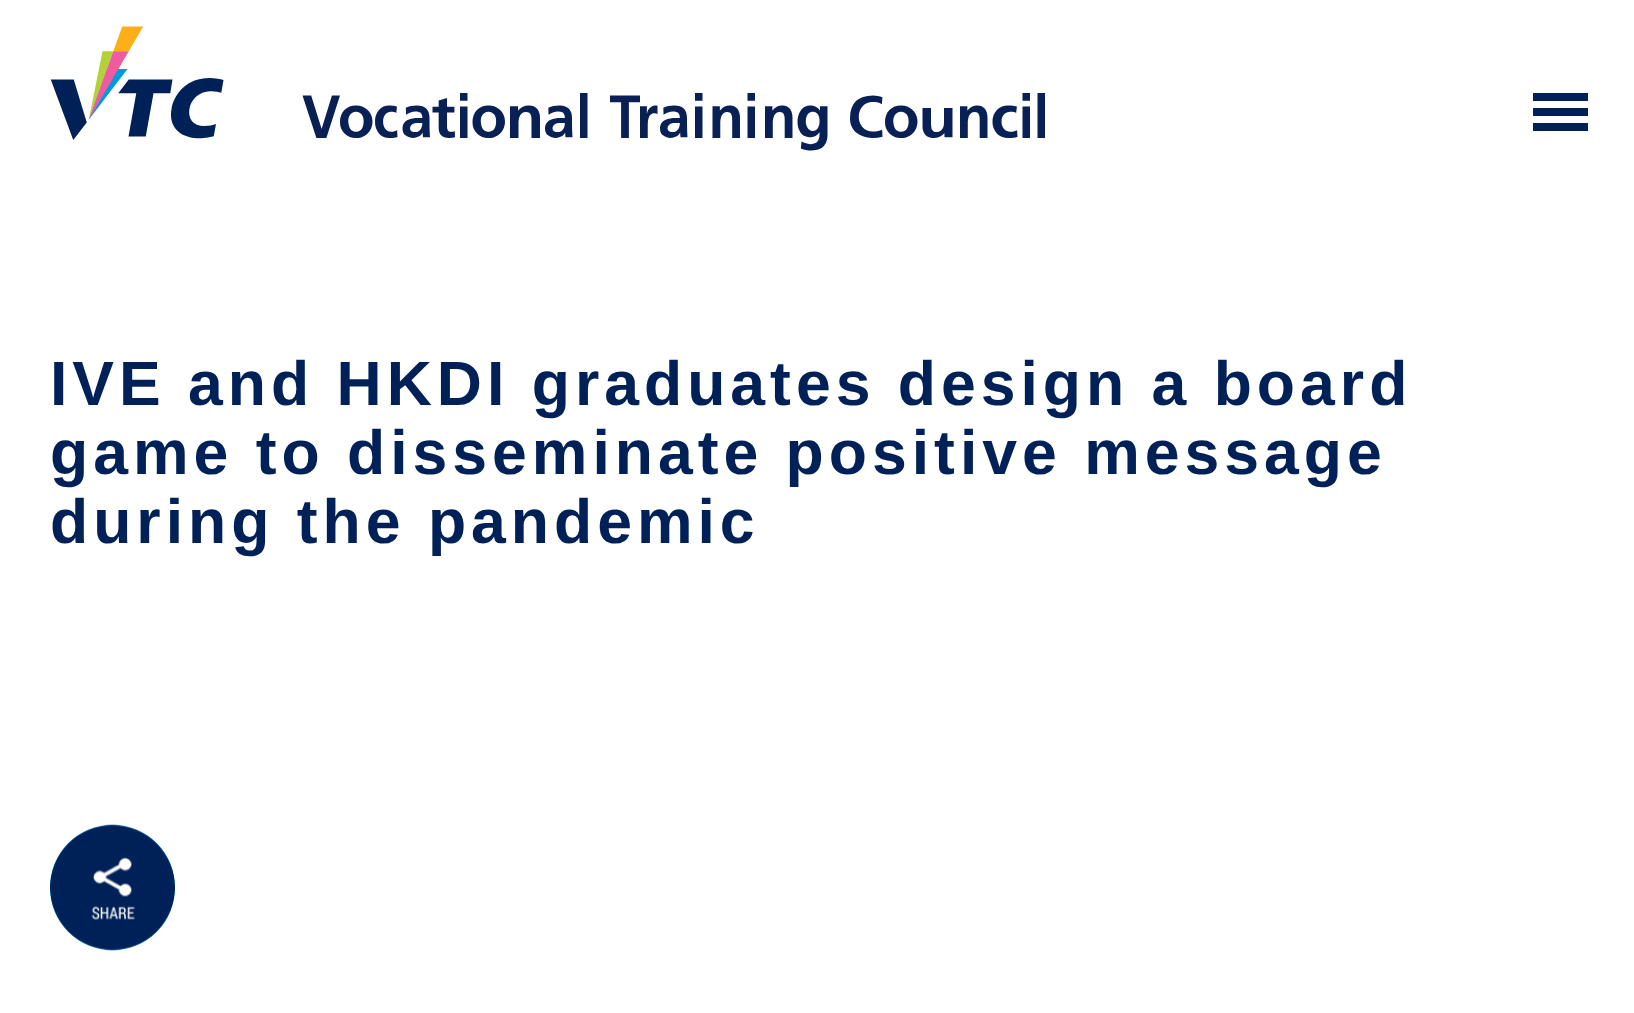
(async () => {
const canvas = document.querySelector("canvas")
canvas.width = 1634
canvas.height = 1013
const c = canvas.getContext("2d")
c.miterLimit = 4
c.fontKerning = "normal"
function T(s,x,y){c.fillText(s,x,y)}
function R(x,y,w,h){c.fillRect(x,y,w,h)}
async function I(src,x,y,w,h){const img=new Image();img.src=src;await img.decode();c.drawImage(img,x,y,w,h)}
c.fillStyle="#fff"
R(0,0,1634,1013)
await I("1.png",50,26,995,125)
c.fillStyle="#002157"
R(1533,108,55,8)
R(1533,93,55,8)
R(1533,123,55,8)
c.letterSpacing="5px"
c.font="bold 62.5px Liberation Sans"
T("IVE and HKDI graduates design a board",50,405)
T("game to disseminate positive message",50,474)
T("during the pandemic",50,543)
c.fillStyle="#019ade"
c.beginPath()
c.arc(112.5,887.5,62.5,0,7)
c.fill()
await I("2.png",50,824,125,127)
})()
